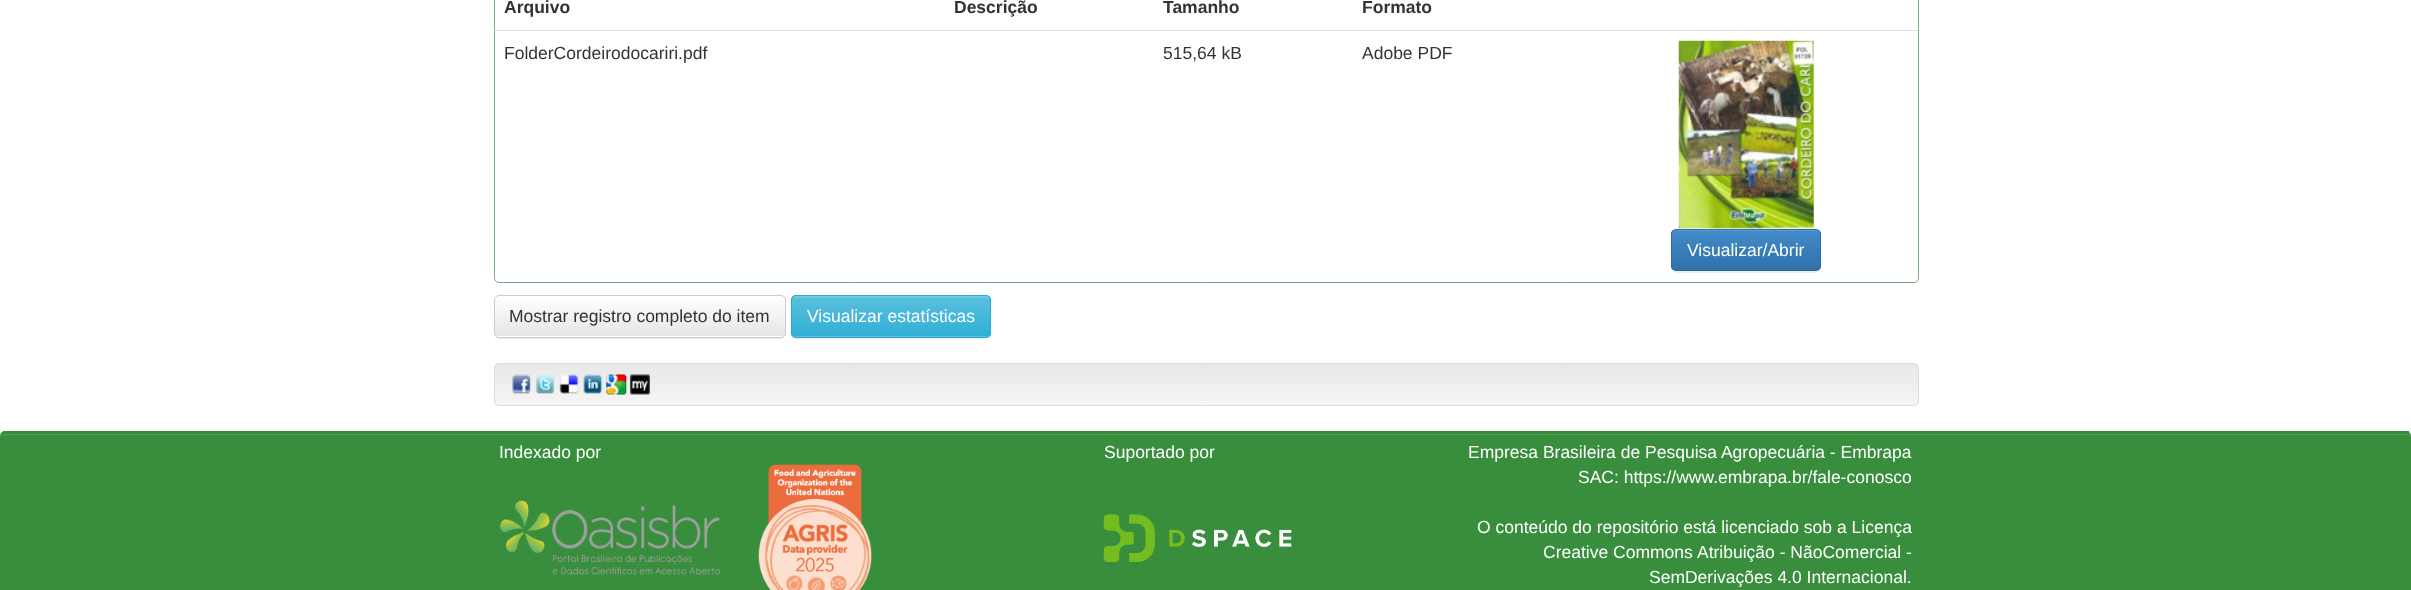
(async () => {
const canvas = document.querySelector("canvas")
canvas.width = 2411
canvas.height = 590
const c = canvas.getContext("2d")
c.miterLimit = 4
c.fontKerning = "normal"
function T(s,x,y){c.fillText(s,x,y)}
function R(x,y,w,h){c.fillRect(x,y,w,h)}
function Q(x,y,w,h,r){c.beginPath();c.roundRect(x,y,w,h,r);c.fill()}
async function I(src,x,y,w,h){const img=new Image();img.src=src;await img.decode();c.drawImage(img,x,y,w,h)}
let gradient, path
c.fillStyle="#fff"
R(0,0,2411,590)
c.beginPath()
c.roundRect(494.5,-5.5,1424,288,4.5)
c.strokeStyle="#7aa97a"
c.stroke()
c.font="bold 17.5px Liberation Sans"
c.fillStyle="#333"
T("Arquivo",504,13)
T("Descrição",954,13)
T("Tamanho",1163,13)
T("Formato",1362,13)
c.font="17.5px Liberation Sans"
T("FolderCordeirodocariri.pdf",504,59)
T("515,64 kB",1163,59)
T("Adobe PDF",1362,59)
c.fillStyle="#ddd"
R(494,30,1424,1)
await I("1.png",1678,40,136,189)
c.fillStyle="#00000012"
c.filter="blur(0.5px)"
c.beginPath()
c.roundRect(1671,230,150,43,5)
c.fill()
c.filter="none"
c.save()
c.beginPath()
c.roundRect(1671,229,150,42,5)
c.clip()
gradient = c.createLinearGradient(1746,230,1746,270)
gradient.addColorStop(0,"#428bca")
gradient.addColorStop(1,"#3071a9")
c.fillStyle = gradient
R(1671,230,150,40)
c.restore()
c.fillStyle="#5e9cd2"
path = new Path2D("M1676 231h140c2 0 4 2 4 4v-1c0-2-2-4-4-4h-139c-1 0-3 1-3 2z")
c.fill(path)
c.beginPath()
c.roundRect(1671.5,229.5,149,41,4.5)
c.strokeStyle="#2d6ca2"
c.stroke()
c.fillStyle="#fff"
T("Visualizar/Abrir",1687,256)
c.fillStyle="#00000012"
c.filter="blur(0.5px)"
c.beginPath()
c.roundRect(494,296,292,43,5)
c.fill()
c.filter="none"
c.fillStyle="#fff"
Q(494,295,292,43,5)
c.save()
c.beginPath()
c.roundRect(494,295,292,43,5)
c.clip()
gradient = c.createLinearGradient(640,296,640,336)
gradient.addColorStop(0,"#fff")
gradient.addColorStop(1,"#e6e6e6")
c.fillStyle = gradient
R(494,296,292,40)
c.restore()
c.beginPath()
c.roundRect(494.5,295.5,291,42,4.5)
c.strokeStyle="#ccc"
c.stroke()
c.fillStyle="#333"
T("Mostrar registro completo do item",509,322)
c.fillStyle="#00000012"
c.filter="blur(0.5px)"
c.beginPath()
c.roundRect(791,296,200,43,5)
c.fill()
c.filter="none"
c.fillStyle="#5bc0de"
Q(791,295,200,43,5)
c.save()
c.beginPath()
c.roundRect(791,295,200,43,5)
c.clip()
gradient = c.createLinearGradient(891,296,891,336)
gradient.addColorStop(0,"#5bc0de")
gradient.addColorStop(1,"#31b0d5")
c.fillStyle = gradient
R(791,296,200,40)
c.restore()
c.fillStyle="#72c9e3"
path = new Path2D("M796 298h190c2 0 4 1 4 3v-1c0-2-2-4-4-4h-189c-2 0-3 1-4 3z")
c.fill(path)
c.beginPath()
c.roundRect(791.5,295.5,199,42,4.5)
c.strokeStyle="#2aabd2"
c.stroke()
c.fillStyle="#fff"
T("Visualizar estatísticas",807,322)
c.save()
c.beginPath()
c.roundRect(494,363,1425,43,5)
c.clip()
gradient = c.createLinearGradient(1206,364,1206,405)
gradient.addColorStop(0,"#e8e8e8")
gradient.addColorStop(1,"#f5f5f5")
c.fillStyle = gradient
R(494,364,1425,41)
c.restore()
c.beginPath()
c.roundRect(494.5,363.5,1424,42,4.5)
c.strokeStyle="#dcdcdc"
c.stroke()
await I("2.png",512,374,19,20)
await I("3.png",535,374,20,20)
await I("4.png",559,374,20,20)
await I("5.png",583,374,20,20)
await I("6.png",606,374,21,21)
await I("7.png",630,374,20,21)
c.fillStyle="#388e3c"
Q(0,431,2411,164,5)
c.fillStyle="#ffffff26"
path = new Path2D("M5 435h2401c3 0 5 1 5 3v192v-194c0-1-2-2-5-2h-2401c-3 0-5 1-5 2v2c0-2 2-3 5-3z")
c.fill(path)
c.fillStyle="#388e3c"
R(3,431,2406,1)
c.fillStyle="#fff"
T("Indexado por",499,458)
await I("8.png",500,500,220,75)
await I("9.png",758,464,114,126)
T("Suportado por",1104,458)
await I("10.png",1103,514,189,48)
T("Empresa Brasileira de Pesquisa Agropecuária - Embrapa",1468,458)
T("SAC: https://www.embrapa.br/fale-conosco",1578,483)
T("O conteúdo do repositório está licenciado sob a Licença",1477,533)
T("Creative Commons",1543,558)
T("Atribuição - NãoComercial -",1697,558)
T("SemDerivações 4.0 Internacional.",1649,583)
})()
